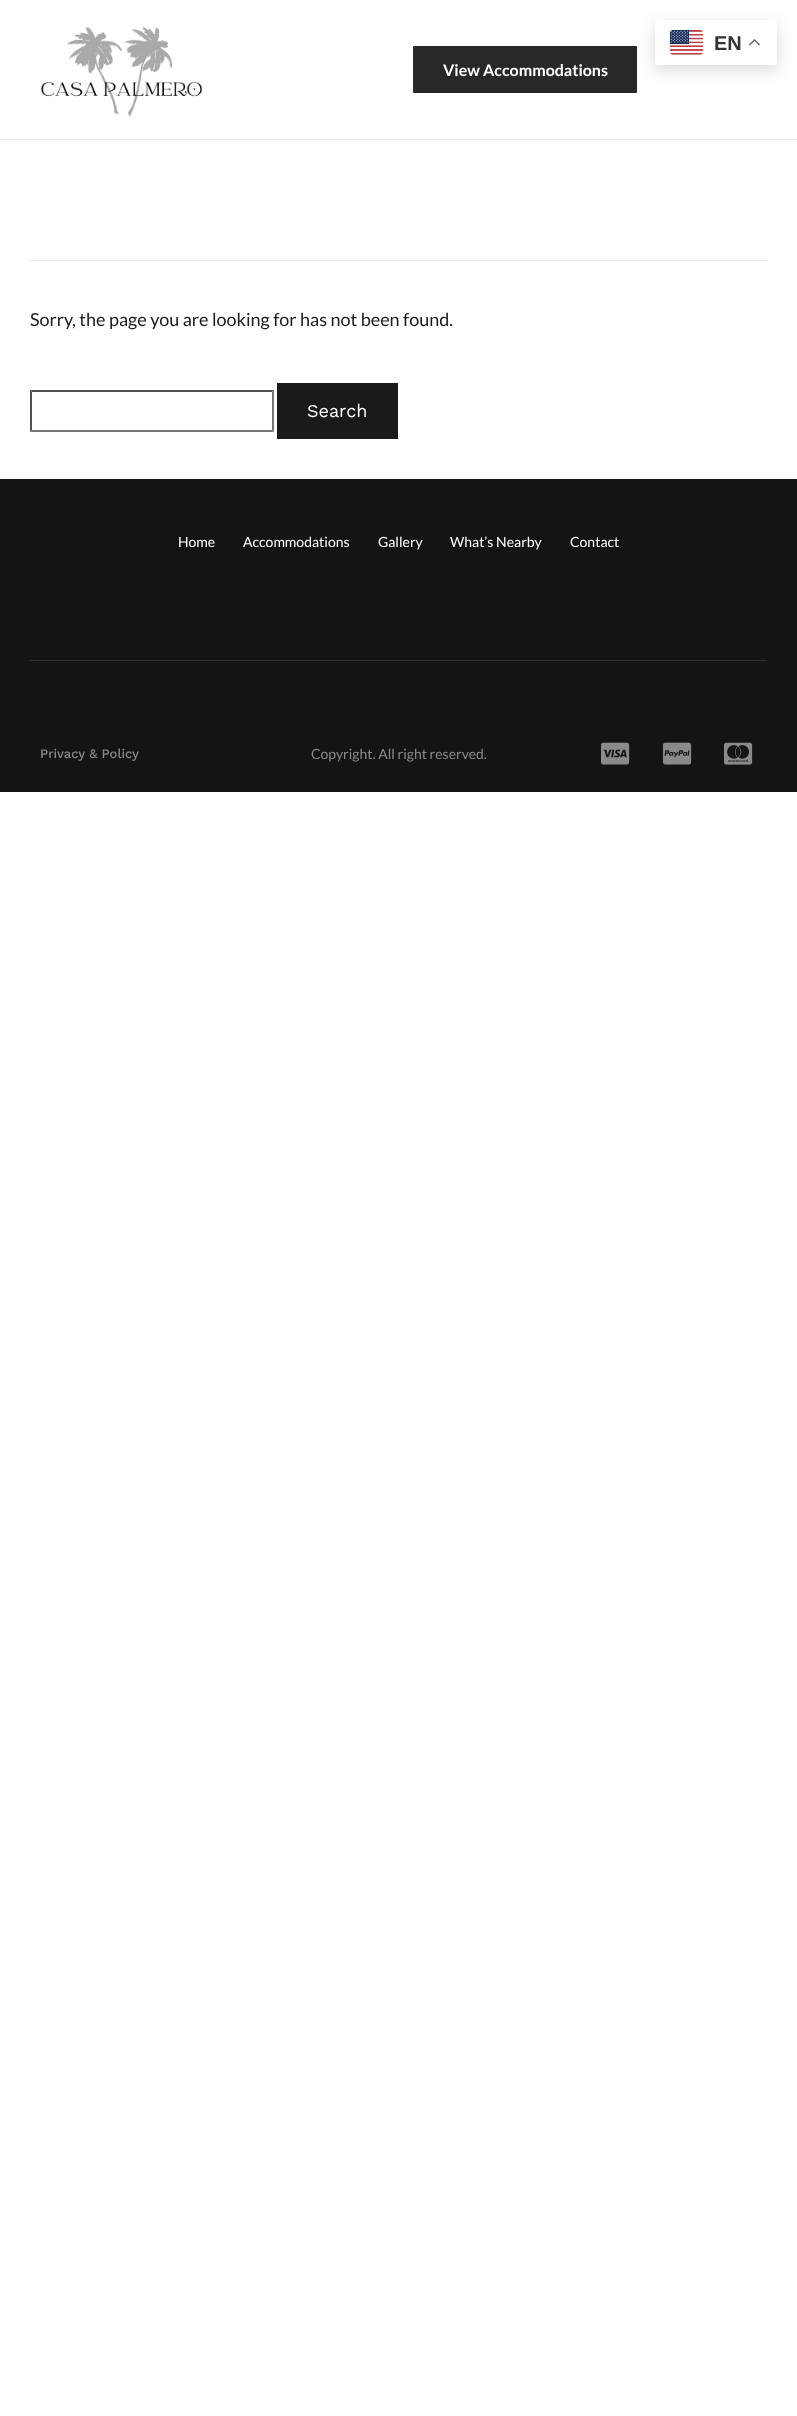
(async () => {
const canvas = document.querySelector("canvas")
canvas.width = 797
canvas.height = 2416
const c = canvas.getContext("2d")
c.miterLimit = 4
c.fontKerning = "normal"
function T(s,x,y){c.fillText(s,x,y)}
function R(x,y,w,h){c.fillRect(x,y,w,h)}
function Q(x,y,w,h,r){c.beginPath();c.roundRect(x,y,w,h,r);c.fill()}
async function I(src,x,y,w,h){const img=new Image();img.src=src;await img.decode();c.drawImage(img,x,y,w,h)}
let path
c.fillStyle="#fff"
R(0,0,797,2416)
c.fillStyle="#282828"
Q(413,46,224,47,1)
c.fillStyle="#00000026"
c.filter="blur(7.5px)"
c.beginPath()
c.roundRect(655,25,122,45,2)
c.fill()
c.filter="none"
c.fillStyle="#fff"
Q(655,20,122,45,2)
await I("1.png",670,30,33,25)
c.font="bold 20px Liberation Sans"
c.fillStyle="#333"
T("EN",714,50)
await I("2.png",749,39,11,7)
c.fillStyle="#e6e6e6"
R(0,139,797,1)
await I("3.png",40,26,163,91)
c.font="bold 16px Lato"
c.fillStyle="#fff"
T("View Accommodations",443,76)
c.fillStyle="#e6e6e6"
R(30,260,737,1)
c.font="18px Lato"
c.fillStyle="#191b18"
T("Sorry, the page you are looking for has not been found.",30,326)
c.fillStyle="#4f4f4f"
path = new Path2D("M30 390h244l-2 2h-240z")
c.fill(path)
c.fillStyle="#767676"
path = new Path2D("M274 390v42l-2-2v-38z")
c.fill(path)
path = new Path2D("M274 432h-244l2-2h240z")
c.fill(path)
c.fillStyle="#4f4f4f"
path = new Path2D("M30 432v-42l2 2v38z")
c.fill(path)
c.fillStyle="#191b18"
R(277,383,121,56)
c.font="18px Work Sans"
c.fillStyle="#fff"
T("Search",307,417)
c.fillStyle="#141513"
R(0,479,797,313)
c.font="14px Lato"
c.fillStyle="#fff"
T("Home",178,547)
T("Accommodations",243,547)
T("Gallery",378,547)
T("What’s Nearby",450,547)
T("Contact",570,547)
c.fillStyle="#2e2e2d"
R(30,660,737,1)
c.font="500 13px Work Sans"
c.fillStyle="#8a8a89"
T("Privacy & Policy",40,758)
c.font="14px Lato"
T("Copyright. All right reserved.",311,759)
await I("4.png",601,742,29,23)
await I("5.png",663,742,29,23)
await I("6.png",724,742,29,23)
})()
